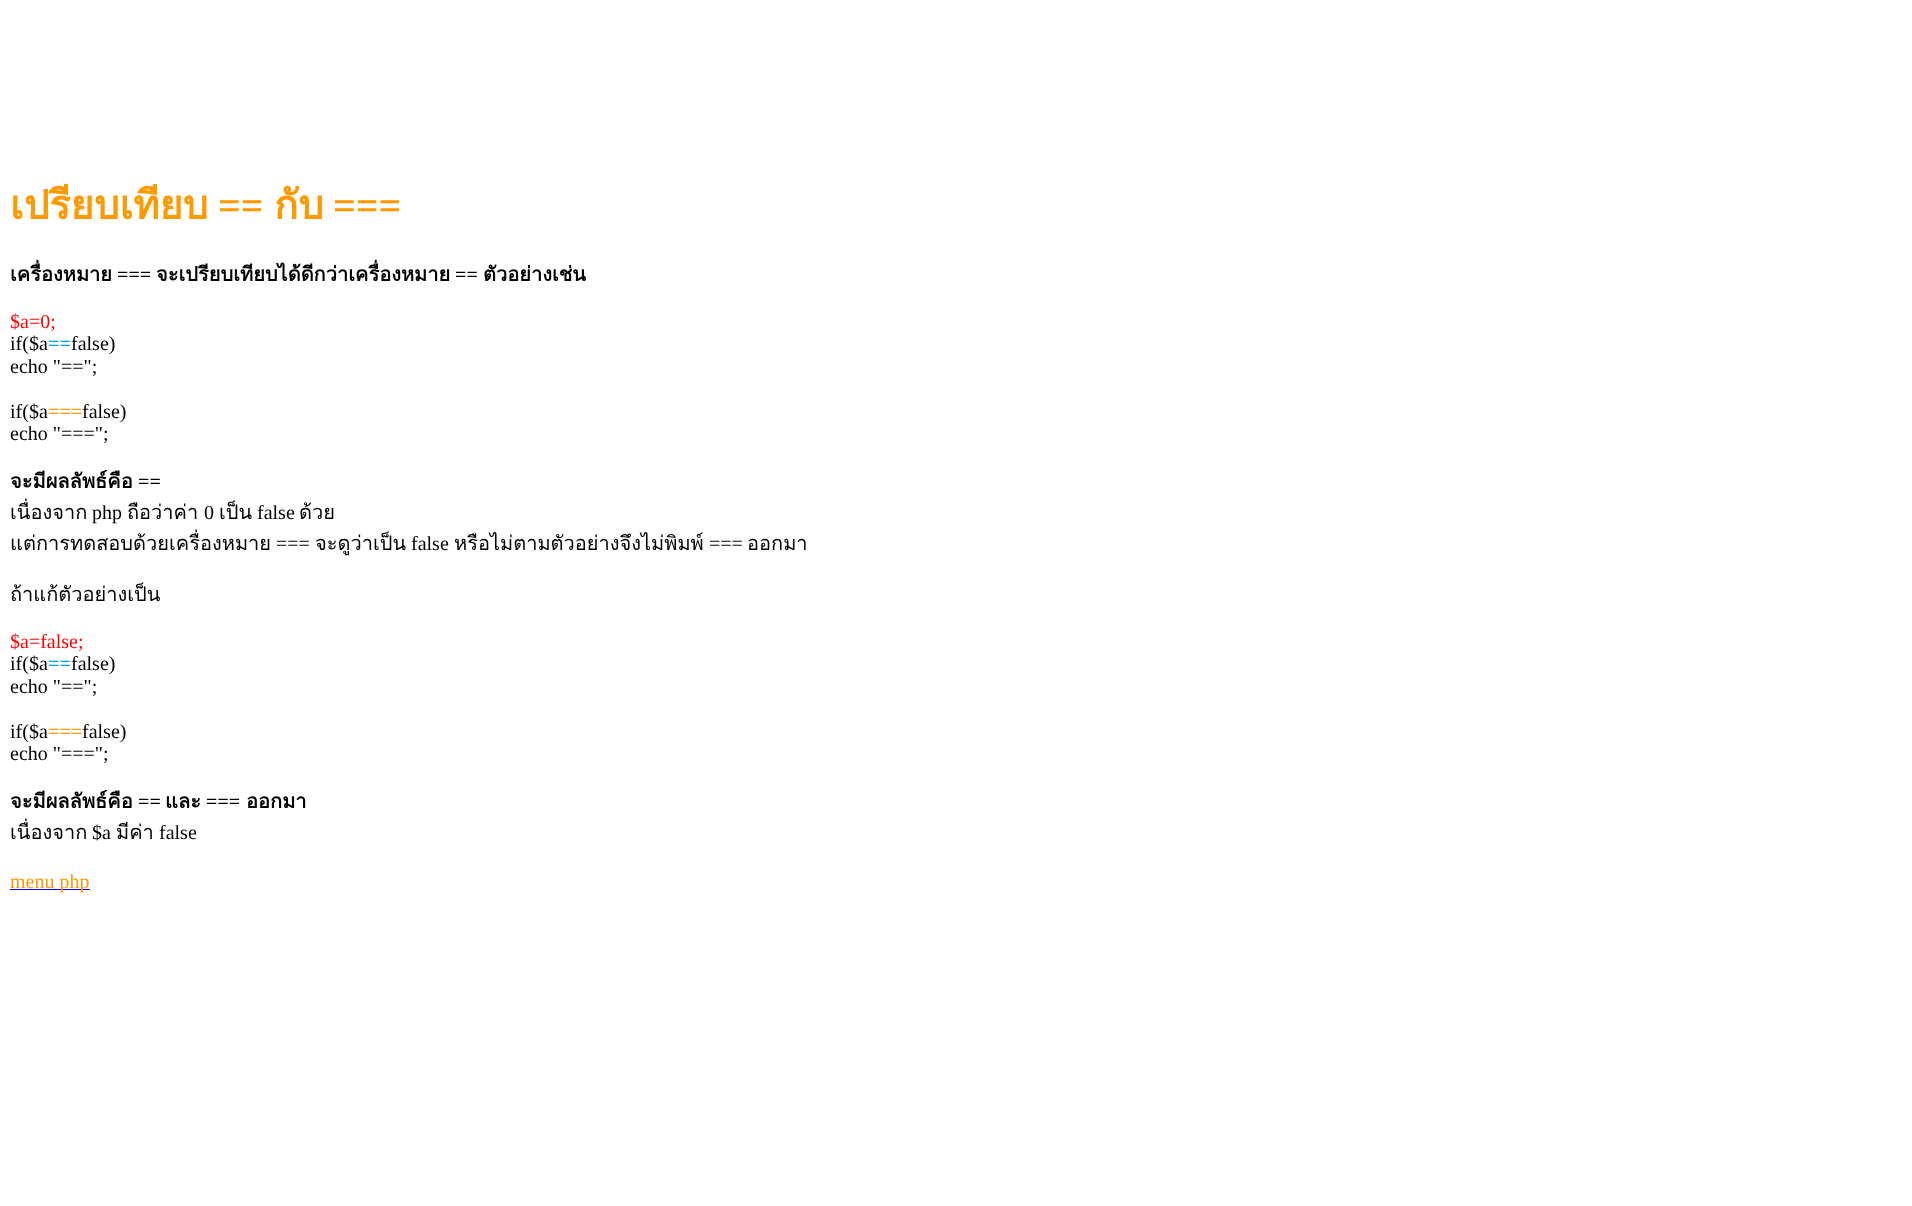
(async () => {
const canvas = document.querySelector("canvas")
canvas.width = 1912
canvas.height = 1206
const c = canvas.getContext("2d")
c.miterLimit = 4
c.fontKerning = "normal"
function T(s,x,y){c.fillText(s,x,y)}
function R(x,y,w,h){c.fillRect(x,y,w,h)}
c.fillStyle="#fff"
R(0,0,1912,1206)
c.font="bold 40px Loma"
c.fillStyle="#f90"
T("เปรียบเทียบ",10,219)
c.font="bold 40px Liberation Serif"
T("==",218,219)
c.font="bold 40px Loma"
T("กับ",274,219)
c.font="bold 40px Liberation Serif"
T("===",333,219)
c.font="bold 20px Loma"
c.fillStyle="#000"
T("เครื่องหมาย",10,281)
c.font="bold 20px Liberation Serif"
T("===",117,281)
c.font="bold 20px Loma"
T("จะเปรียบเทียบได้ดีกว่าเครื่องหมาย",156,281)
c.font="bold 20px Liberation Serif"
T("==",455,281)
c.font="bold 20px Loma"
T("ตัวอย่างเช่น",483,281)
c.font="20px Liberation Serif"
c.fillStyle="#f00"
T("$a=0;",10,328)
c.fillStyle="#000"
T("if($a",10,350)
c.font="bold 20px Liberation Serif"
c.fillStyle="#09f"
T("==",48,350)
c.font="20px Liberation Serif"
c.fillStyle="#000"
T("false)",71,350)
T("echo \"==\";",10,373)
T("if($a",10,418)
c.font="bold 20px Liberation Serif"
c.fillStyle="#f90"
T("===",48,418)
c.font="20px Liberation Serif"
c.fillStyle="#000"
T("false)",82,418)
T("echo \"===\";",10,440)
c.font="bold 20px Loma"
T("จะมีผลลัพธ์คือ",10,488)
c.font="bold 20px Liberation Serif"
T("==",138,488)
c.font="20px Loma"
T("เนื่องจาก",10,519)
c.font="20px Liberation Serif"
T("php",92,519)
c.font="20px Loma"
T("ถือว่าค่า",127,519)
c.font="20px Liberation Serif"
T("0",204,519)
c.font="20px Loma"
T("เป็น",219,519)
c.font="20px Liberation Serif"
T("false",257,519)
c.font="20px Loma"
T("ด้วย",299,519)
T("แต่การทดสอบด้วยเครื่องหมาย",10,550)
c.font="20px Liberation Serif"
T("===",276,550)
c.font="20px Loma"
T("จะดูว่าเป็น",315,550)
c.font="20px Liberation Serif"
T("false",411,550)
c.font="20px Loma"
T("หรือไม่ตามตัวอย่างจึงไม่พิมพ์",454,550)
c.font="20px Liberation Serif"
T("===",709,550)
c.font="20px Loma"
T("ออกมา",747,550)
T("ถ้าแก้ตัวอย่างเป็น",10,601)
c.font="20px Liberation Serif"
c.fillStyle="#f00"
T("$a=false;",10,648)
c.fillStyle="#000"
T("if($a",10,670)
c.font="bold 20px Liberation Serif"
c.fillStyle="#09f"
T("==",48,670)
c.font="20px Liberation Serif"
c.fillStyle="#000"
T("false)",71,670)
T("echo \"==\";",10,693)
T("if($a",10,738)
c.font="bold 20px Liberation Serif"
c.fillStyle="#f90"
T("===",48,738)
c.font="20px Liberation Serif"
c.fillStyle="#000"
T("false)",82,738)
T("echo \"===\";",10,760)
c.font="bold 20px Loma"
T("จะมีผลลัพธ์คือ",10,808)
c.font="bold 20px Liberation Serif"
T("==",138,808)
c.font="bold 20px Loma"
T("และ",165,808)
c.font="bold 20px Liberation Serif"
T("===",206,808)
c.font="bold 20px Loma"
T("ออกมา",246,808)
c.font="20px Loma"
T("เนื่องจาก",10,839)
c.font="20px Liberation Serif"
T("$a",92,839)
c.font="20px Loma"
T("มีค่า",116,839)
c.font="20px Liberation Serif"
T("false",159,839)
c.fillStyle="#00e"
R(10,889,80,1)
c.fillStyle="#f90"
T("menu php",10,888)
})()
